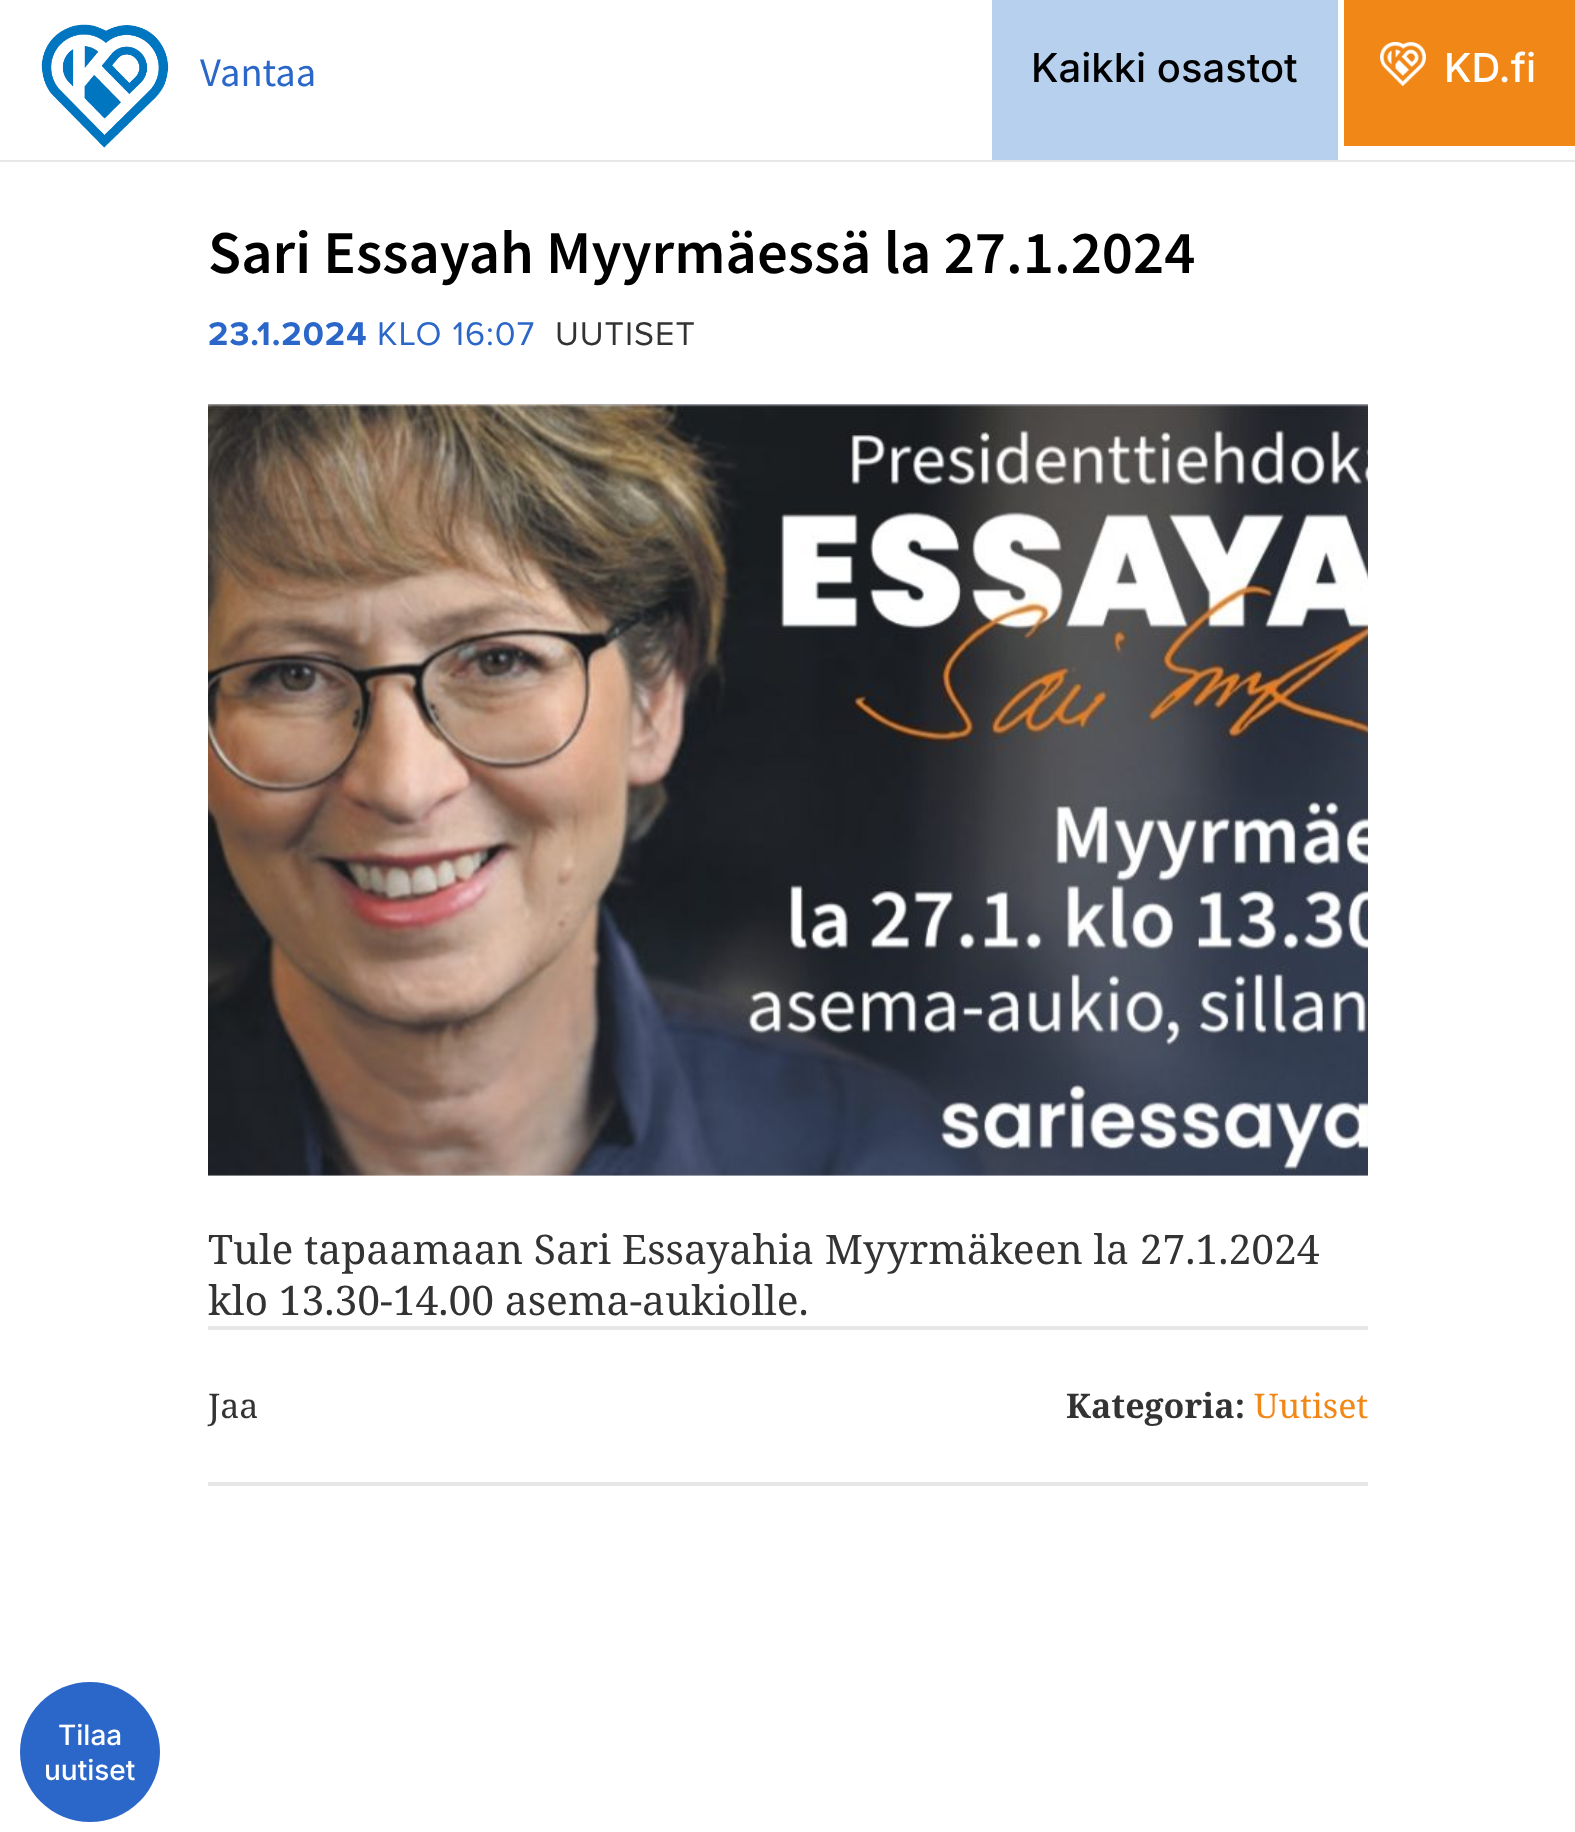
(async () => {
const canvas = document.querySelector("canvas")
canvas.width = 1575
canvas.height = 1832
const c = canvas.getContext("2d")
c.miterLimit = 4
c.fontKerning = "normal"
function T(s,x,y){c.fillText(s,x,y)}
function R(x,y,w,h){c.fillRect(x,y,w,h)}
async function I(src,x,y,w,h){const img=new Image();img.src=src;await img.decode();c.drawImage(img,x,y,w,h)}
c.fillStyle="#fff"
R(0,0,1575,1832)
c.fillStyle="#e7e7e7"
R(0,160,1575,2)
await I("1.png",41,24,128,124)
c.font="40.5px Source Sans Pro"
c.fillStyle="#2b67c9"
T("Vantaa",200,86)
c.fillStyle="#b7d0ee"
R(992,0,346,160)
c.font="500 40px Inter"
c.fillStyle="#000"
T("Kaikki osastot",1031,82)
c.fillStyle="#f18716"
R(1344,0,231,146)
await I("2.png",1380,42,46,44)
c.fillStyle="#fff"
T("KD.fi",1444,82)
c.font="600 60.8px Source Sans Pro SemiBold"
c.fillStyle="#000"
T("Sari Essayah Myyrmäessä la 27.1.2024",208,273)
c.letterSpacing="1px"
c.font="bold 34px Proxima Nova"
c.fillStyle="#2b67c9"
T("23.1.2024",208,345)
c.font="34px Proxima Nova"
T("KLO 16:07",377,345)
c.fillStyle="#333"
T("UUTISET",555,345)
await I("3.png",208,404,1160,772)
c.letterSpacing="0px"
c.font="40.8px Noto Serif"
T("Tule tapaamaan Sari Essayahia Myyrmäkeen la 27.1.2024",208,1264)
T("klo 13.30-14.00 asema-aukiolle.",208,1315)
c.fillStyle="#e7e7e7"
R(208,1326,1160,4)
R(208,1482,1160,4)
c.font="34px Noto Serif"
c.fillStyle="#333"
T("Jaa",208,1418)
c.font="bold 34px Noto Serif"
T("Kategoria:",1066,1418)
c.font="34px Noto Serif"
c.fillStyle="#f18716"
T("Uutiset",1254,1418)
c.fillStyle="#2b67c9"
c.beginPath()
c.arc(90,1752,70,0,7)
c.fill()
c.font="500 28px Inter"
c.fillStyle="#fff"
T("Tilaa",58,1745)
T("uutiset",44,1780)
})()
